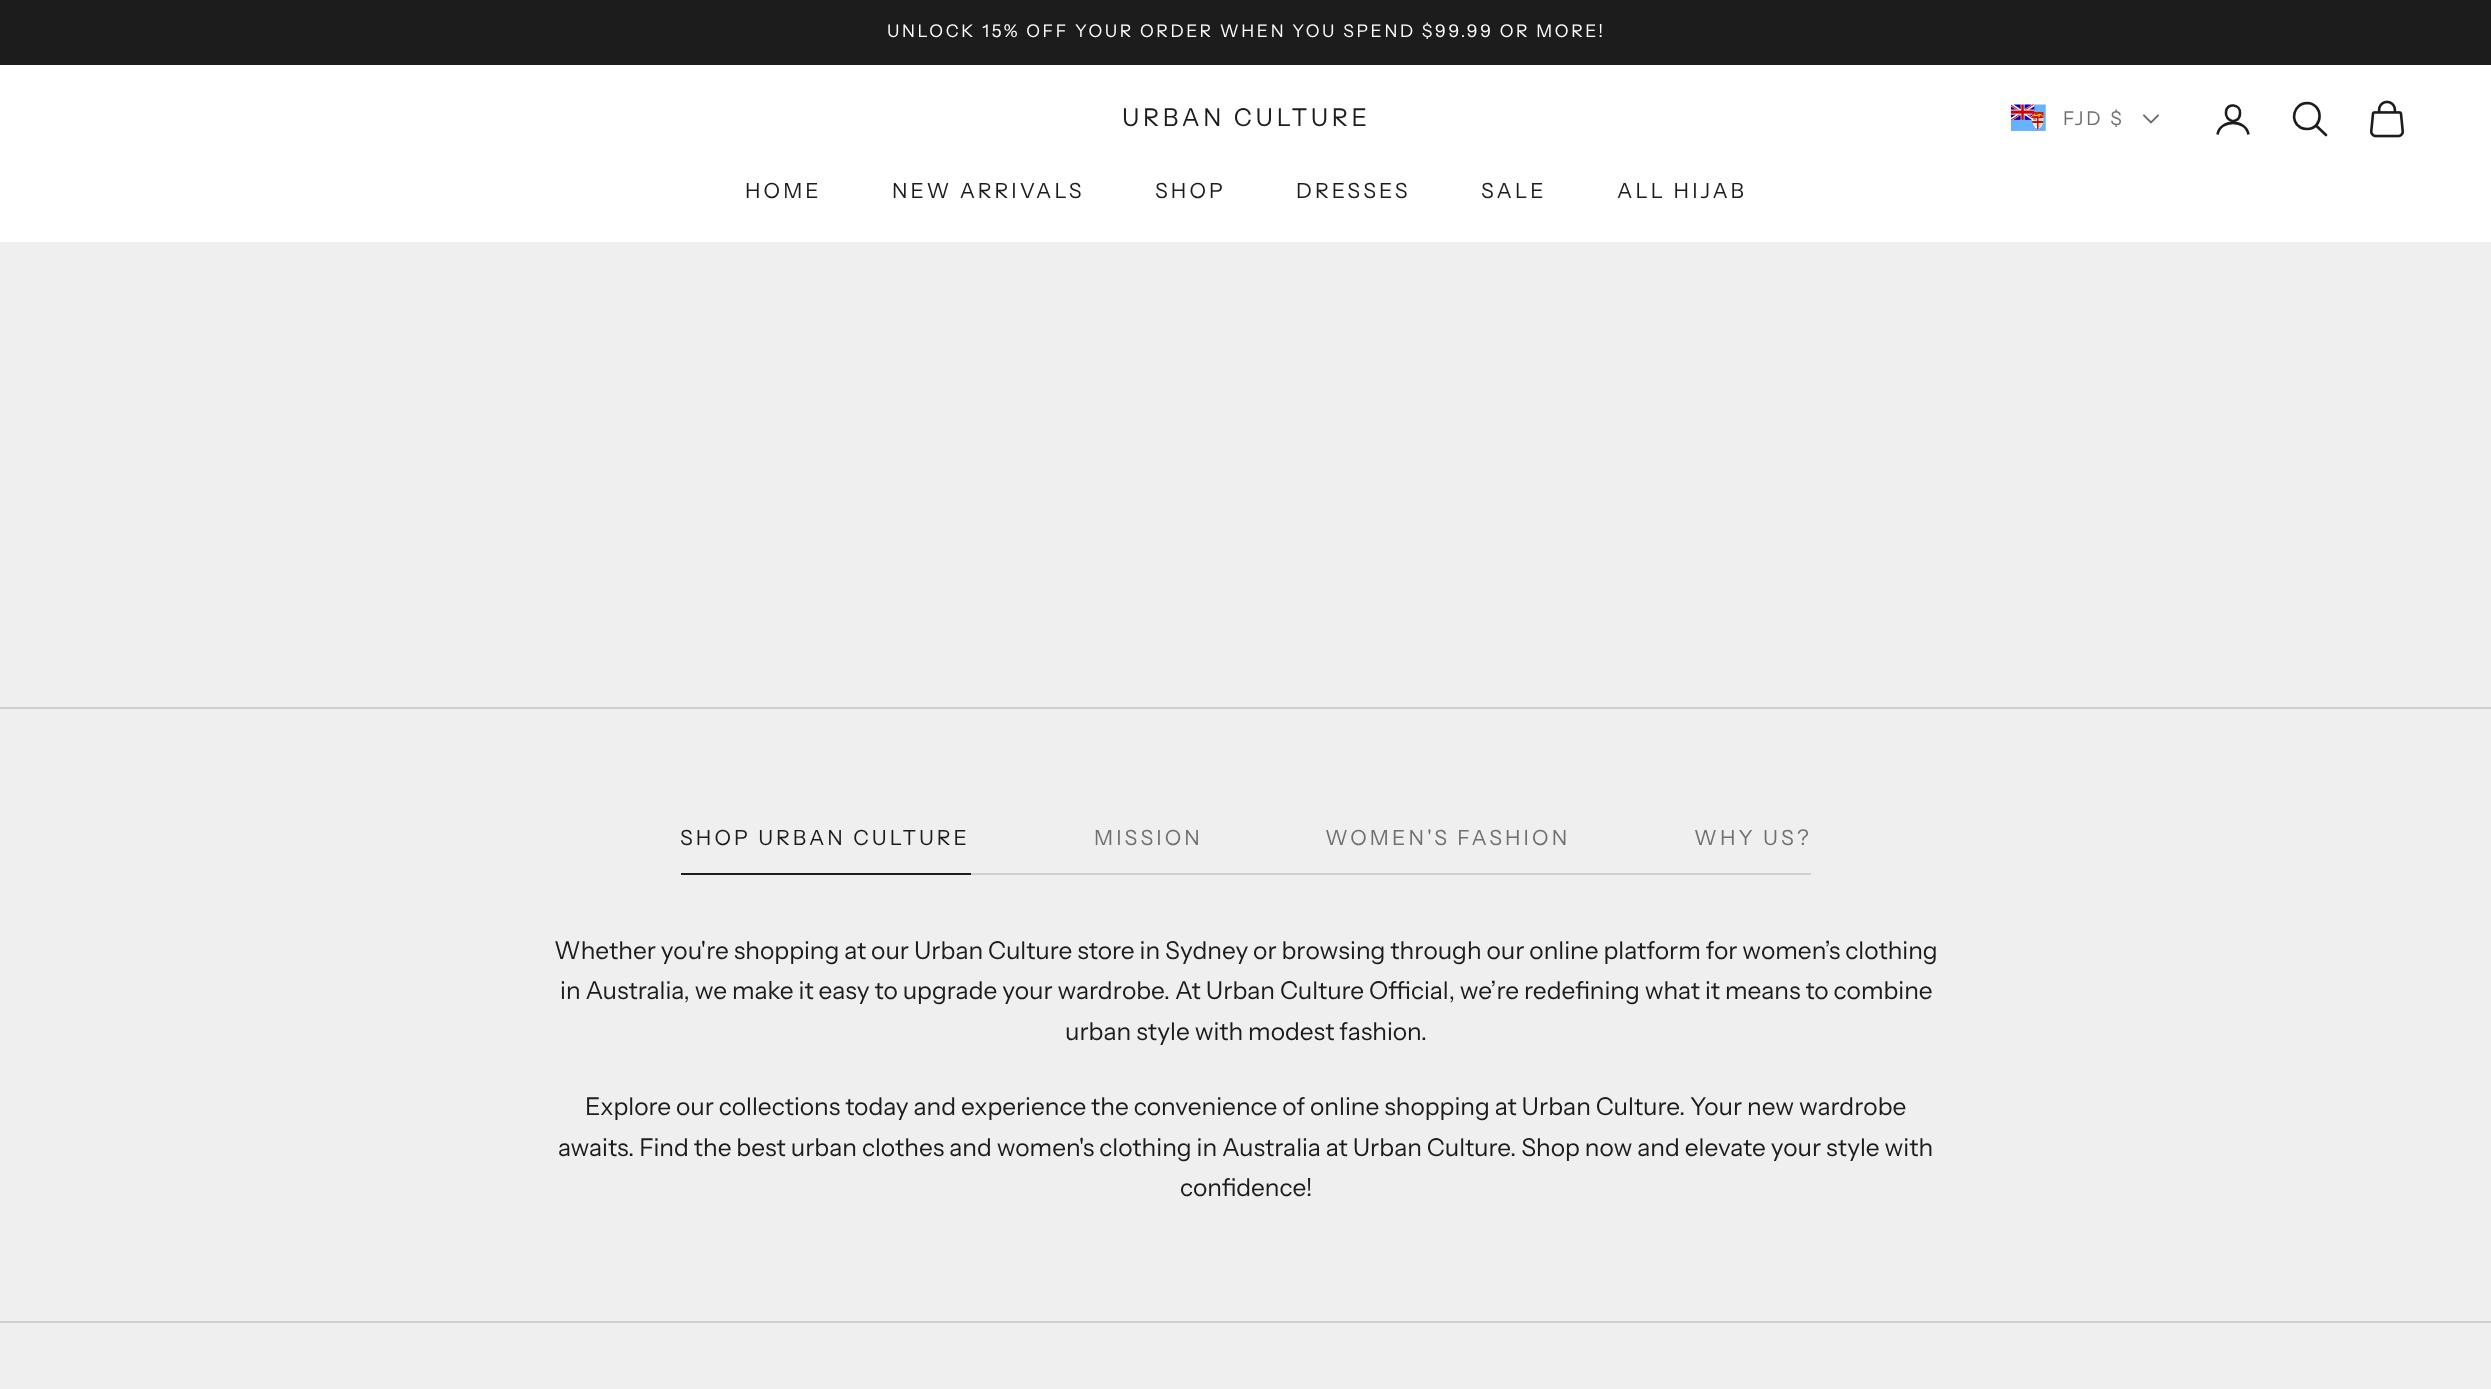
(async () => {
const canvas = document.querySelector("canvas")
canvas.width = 2491
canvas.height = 1389
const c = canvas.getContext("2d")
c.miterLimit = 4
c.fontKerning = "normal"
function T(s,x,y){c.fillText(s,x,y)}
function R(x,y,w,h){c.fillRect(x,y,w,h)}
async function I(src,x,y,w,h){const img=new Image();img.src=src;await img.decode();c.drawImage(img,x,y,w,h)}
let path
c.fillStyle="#efefef"
R(0,0,2491,1389)
c.fillStyle="#1c1c1c"
R(0,0,2491,65)
c.letterSpacing="2.62px"
c.font="17.5px Instrument Sans"
c.fillStyle="#fff"
T("UNLOCK 15% OFF YOUR ORDER WHEN YOU SPEND $99.99 OR MORE!",887,37)
R(0,65,2491,177)
c.letterSpacing="3.75px"
c.font="24.5px Instrument Sans"
c.fillStyle="#1c1c1c"
T("URBAN CULTURE",1122,126)
await I("1.png",2010,104,36,27)
c.letterSpacing="3px"
c.font="19px Instrument Sans"
c.fillStyle="#707070"
T("FJD $",2063,125)
path = new Path2D("M2144 115.5l7 7l7-7")
c.strokeStyle="#6b6b6b"
c.lineWidth=1.8
c.lineCap="square"
c.stroke(path)
path = new Path2D("M2240 113.5c-.5 11.5-15.5 9-14-2c1-9 15-7.5 14 2z")
c.strokeStyle="#1c1c1c"
c.lineWidth=2.6
c.lineCap="round"
c.lineJoin="round"
c.stroke(path)
path = new Path2D("M2217.5 134.5c2.5-15.5 28.5-15.5 31 0")
c.lineCap="butt"
c.lineJoin="miter"
c.stroke(path)
path = new Path2D("M2307 103c-13 0-18 18-6.5 24.5c2 1 4.5 1.5 6.5 1.5c17-.5 16.5-25.5 0-26z")
c.stroke(path)
path = new Path2D("M2316.5 126l9.5 9")
c.lineCap="round"
c.stroke(path)
await I("2.png",2369,100,36,38)
c.letterSpacing="3.1px"
c.font="21px Instrument Sans"
c.fillStyle="#1c1c1c"
T("HOME",745,198)
T("NEW ARRIVALS",892,198)
T("SHOP",1155,198)
T("DRESSES",1296,198)
T("SALE",1481,198)
T("ALL HIJAB",1617,198)
c.fillStyle="#cfcfcf"
R(0,707,2491,2)
R(971,873,840,2)
c.fillStyle="#1c1c1c"
R(681,873,290,2)
T("SHOP URBAN CULTURE",680,845)
c.fillStyle="#707070"
T("MISSION",1094,845)
T("WOMEN'S FASHION",1325,845)
T("WHY US?",1694,845)
c.letterSpacing="0px"
c.font="24.5px Instrument Sans"
c.fillStyle="#1c1c1c"
T("Whether you're shopping at our Urban Culture store in Sydney or browsing through our online platform for women’s clothing",554,959)
T("in Australia, we make it easy to upgrade your wardrobe. At Urban Culture Official, we’re redefining what it means to combine",560,999)
T("urban style with modest fashion.",1065,1040)
T("Explore our collections today and experience the convenience of online shopping at Urban Culture. Your new wardrobe",585,1115)
T("awaits. Find the best urban clothes and women's clothing in Australia at Urban Culture. Shop now and elevate your style with",558,1156)
T("confidence!",1180,1196)
c.fillStyle="#cfcfcf"
R(0,1321,2491,2)
})()
